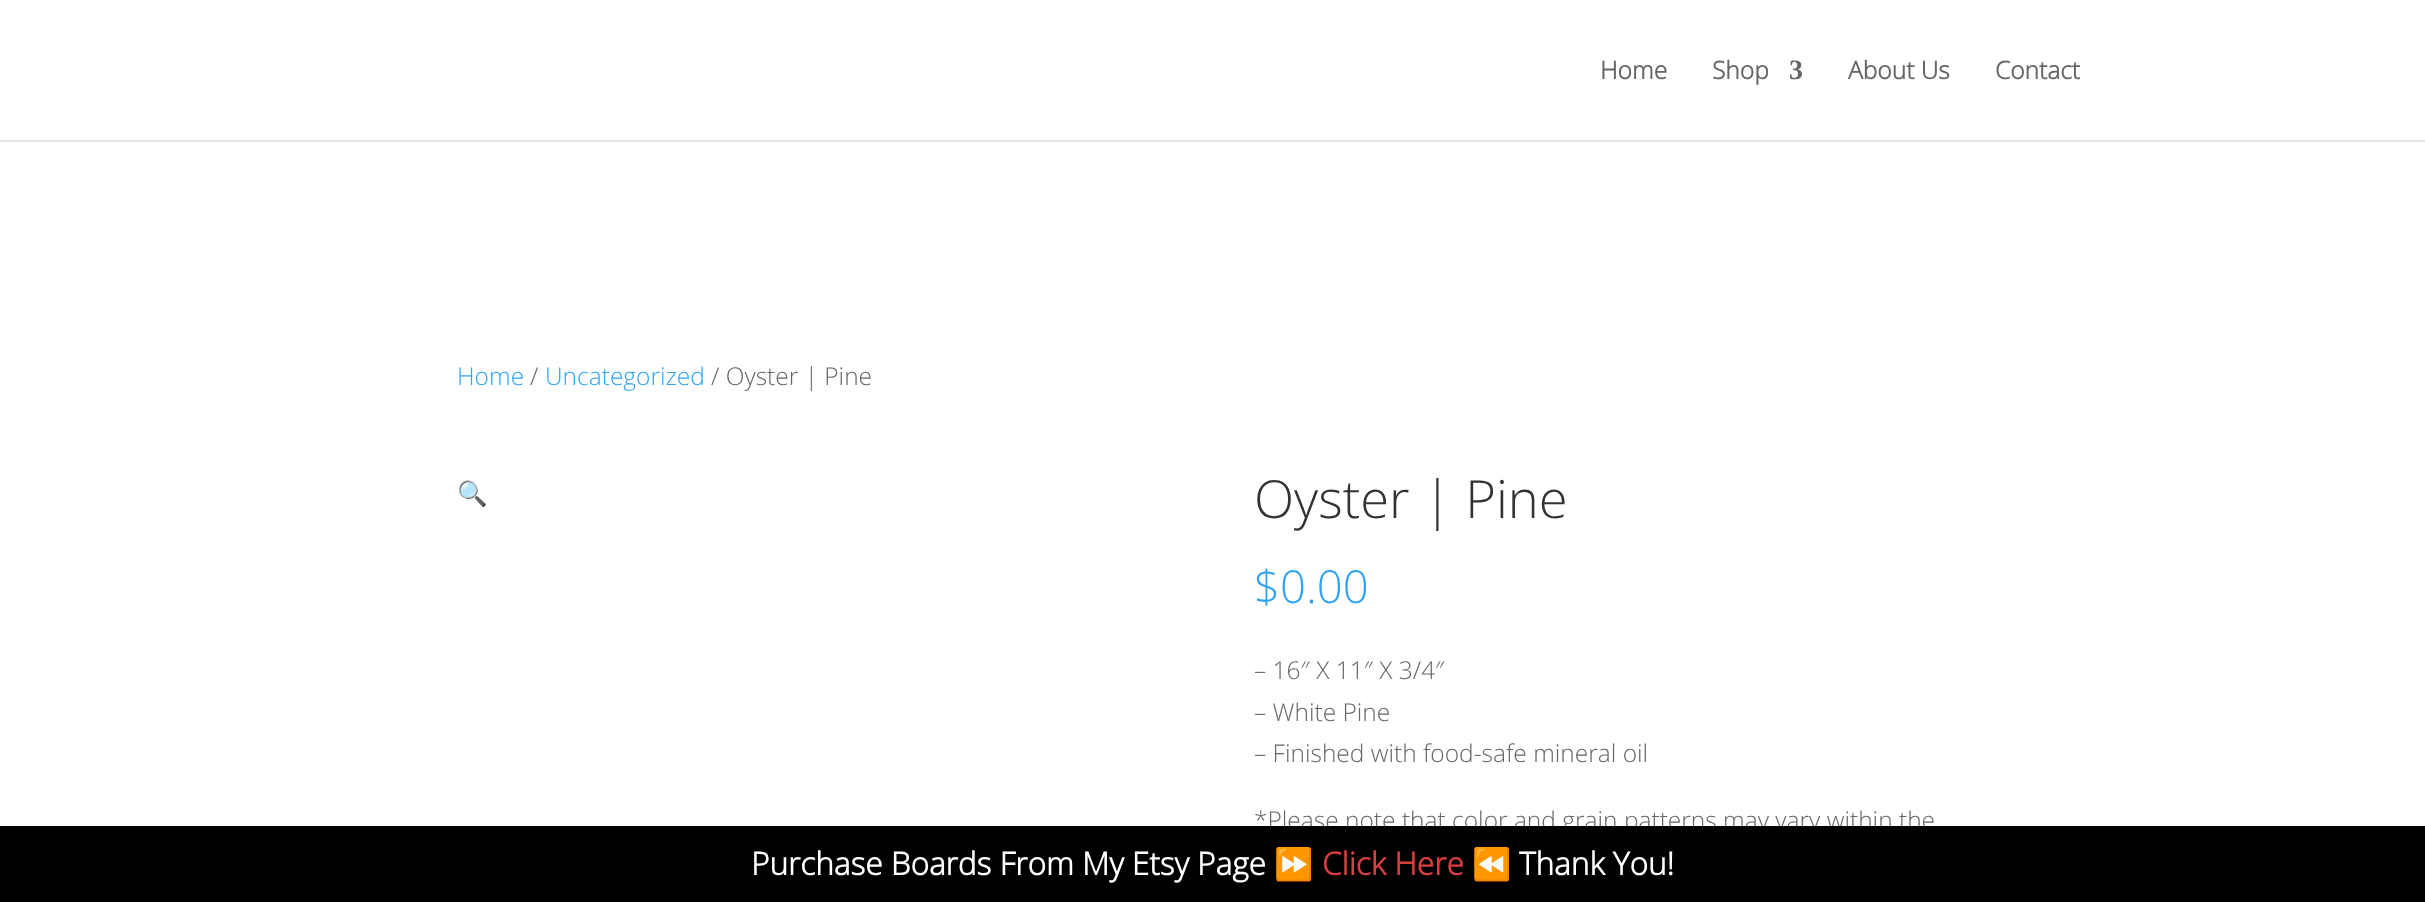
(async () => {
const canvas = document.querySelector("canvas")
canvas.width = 2425
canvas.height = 902
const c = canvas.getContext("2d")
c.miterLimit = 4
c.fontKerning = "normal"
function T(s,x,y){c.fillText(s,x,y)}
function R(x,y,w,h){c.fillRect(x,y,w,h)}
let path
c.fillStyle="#fff"
R(0,0,2425,902)
c.fillStyle="#e6e6e6"
path = new Path2D("M0 140v2h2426v-140v138z")
c.fill(path)
c.font="bold 24.5px Open Sans"
c.fillStyle="#666"
T("Home",1600,79)
T("Shop",1712,79)
c.font="bold 28px Liberation Serif"
T("3",1789,79)
c.font="bold 24.5px Open Sans"
T("About Us",1848,79)
T("Contact",1995,79)
c.font="300 24.5px Open Sans"
c.fillStyle="#2ea3f2"
T("Home",457,385)
c.fillStyle="#666"
T("/",530,385)
c.fillStyle="#2ea3f2"
T("Uncategorized",545,385)
c.fillStyle="#666"
T("/ Oyster | Pine",711,385)
c.font="24.5px Noto Color Emoji"
c.fillStyle="#2ea3f2"
T("🔍",457,502)
c.font="300 52.5px Open Sans"
c.fillStyle="#333"
T("Oyster | Pine",1254,518)
c.font="300 45.5px Open Sans"
c.fillStyle="#2ea3f2"
T("$0.00",1254,603)
c.font="300 24.5px Open Sans"
c.fillStyle="#666"
T("– 16″ X 11″ X 3/4″",1254,679)
T("– White Pine",1254,721)
T("– Finished with food-safe mineral oil",1254,762)
T("*Please note that color and grain patterns may vary within the",1254,829)
c.fillStyle="#000"
R(0,826,2425,76)
c.font="bold 31.5px Open Sans"
c.fillStyle="#fff"
T("Purchase Boards From My Etsy Page",751,875)
c.font="bold 31.5px Noto Color Emoji"
T("⏩",1274,875)
c.font="bold 31.5px Open Sans"
c.fillStyle="#d93f3f"
T("Click Here",1322,875)
c.font="bold 31.5px Noto Color Emoji"
c.fillStyle="#fff"
T("⏪",1472,875)
c.font="bold 31.5px Open Sans"
T("Thank You!",1519,875)
})()
